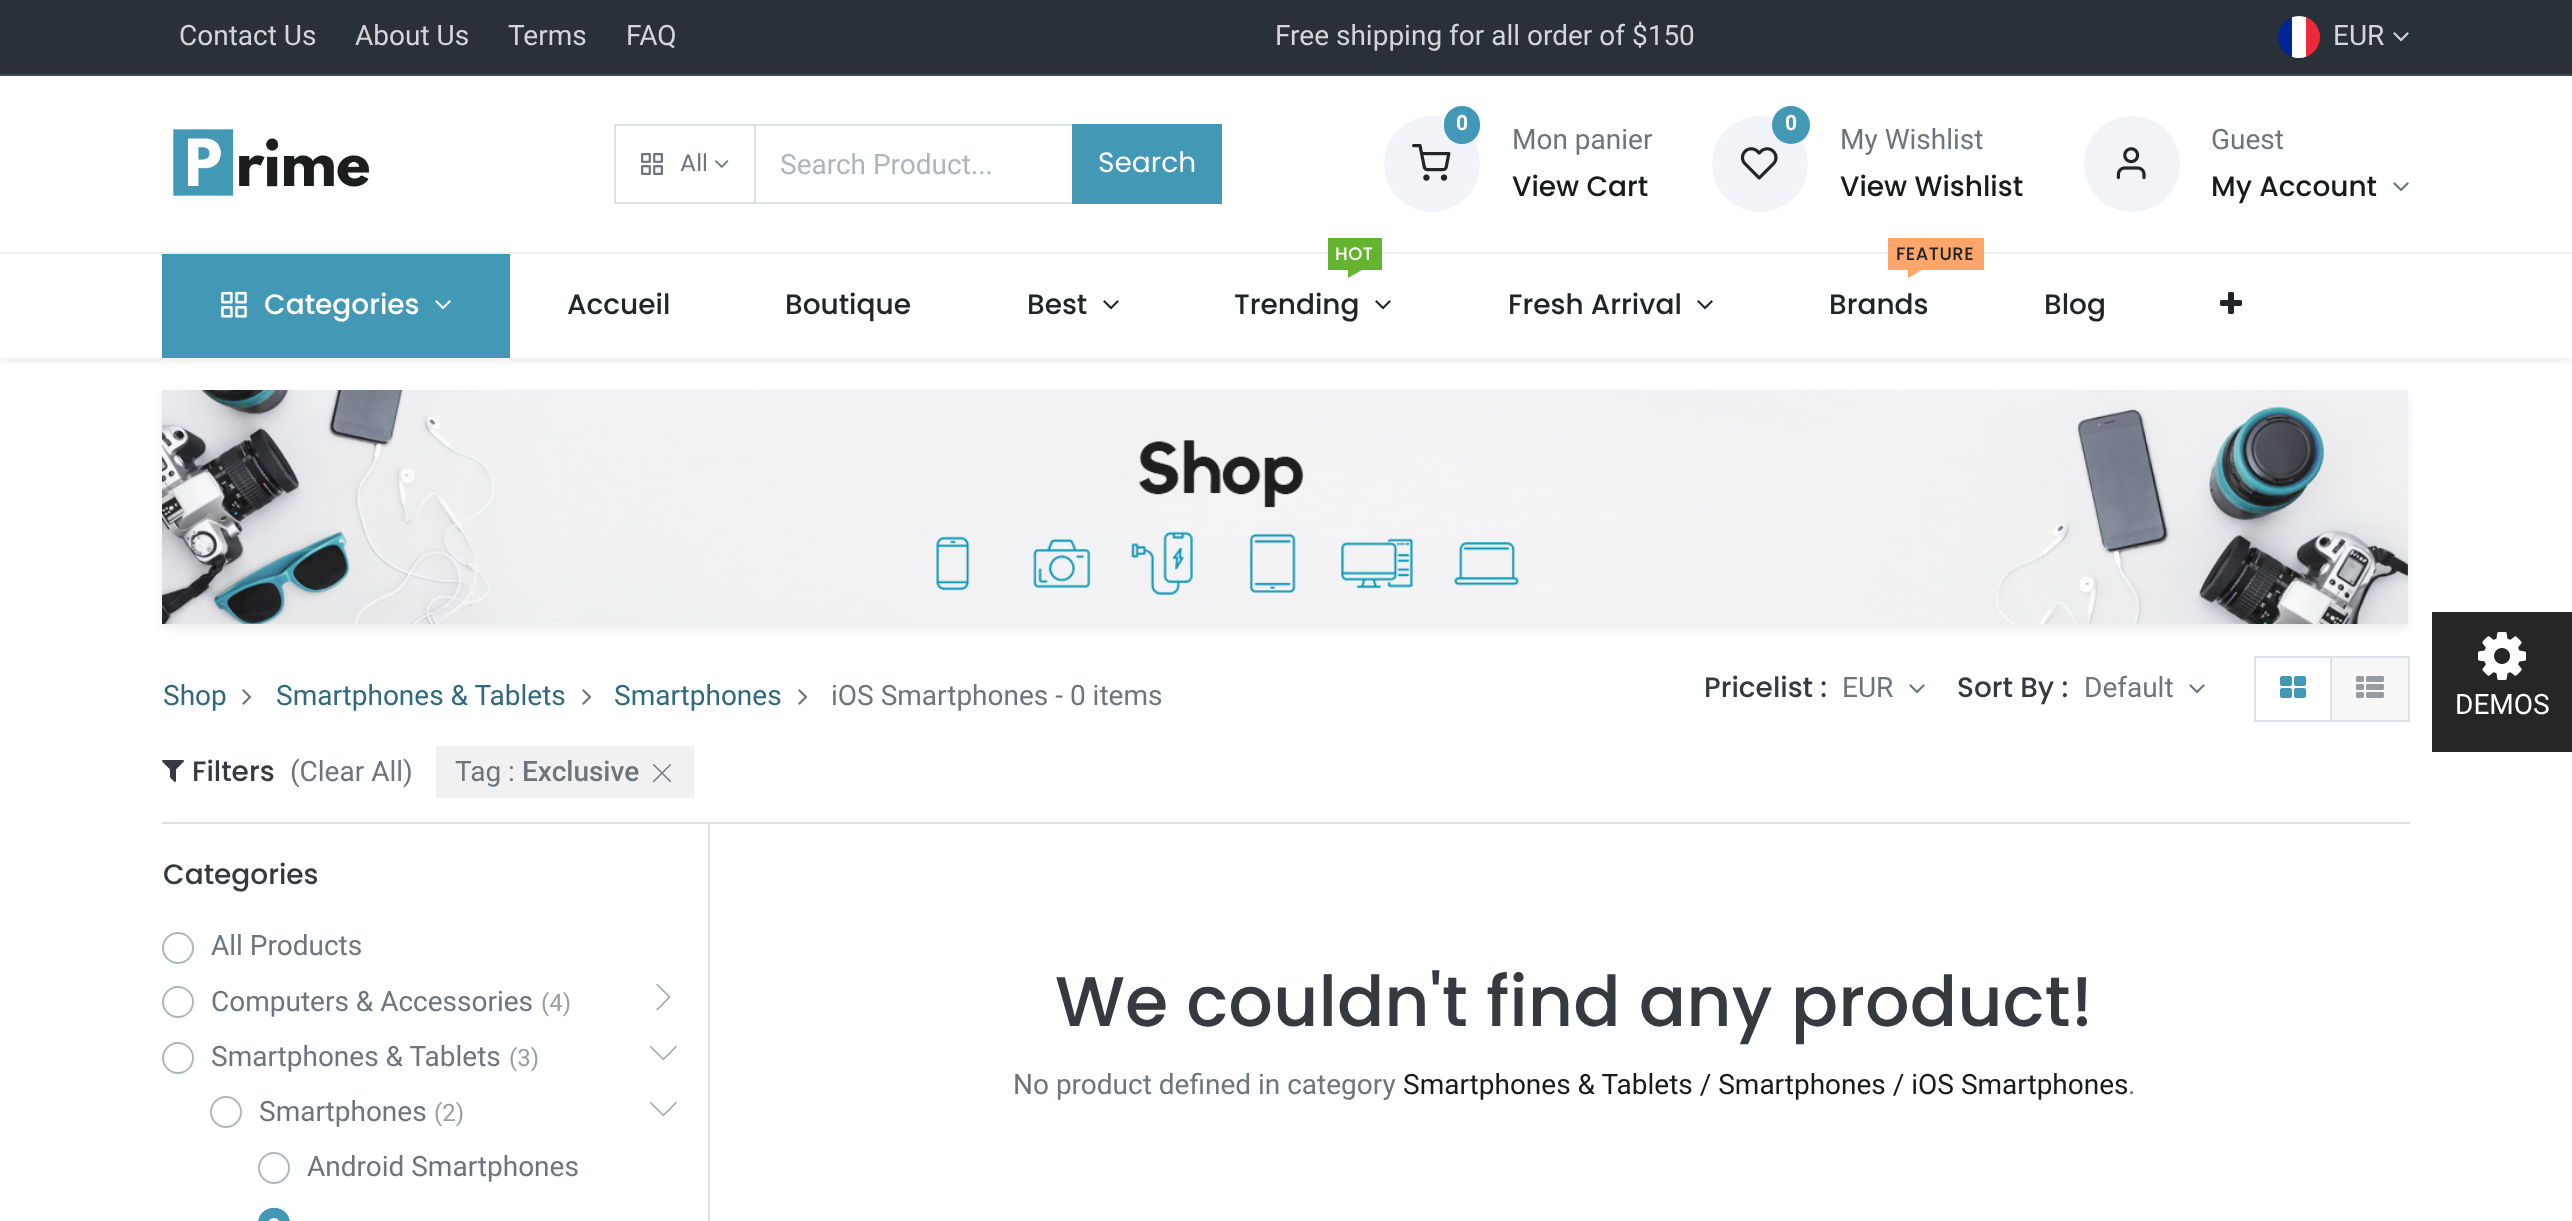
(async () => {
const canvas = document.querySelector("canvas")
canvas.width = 2572
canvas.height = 1221
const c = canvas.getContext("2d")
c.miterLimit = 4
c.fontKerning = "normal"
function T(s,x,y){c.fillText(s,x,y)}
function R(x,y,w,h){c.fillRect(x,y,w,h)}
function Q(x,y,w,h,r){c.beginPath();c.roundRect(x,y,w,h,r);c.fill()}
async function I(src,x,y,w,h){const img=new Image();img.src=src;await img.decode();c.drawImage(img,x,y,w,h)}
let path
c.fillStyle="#fff"
R(0,0,2572,1221)
c.fillStyle="#293037"
R(0,0,2572,74)
c.fillStyle="#43494f"
R(0,74,2572,2)
c.font="28px Roboto"
c.fillStyle="#d4d6d7"
T("Contact Us",179,45)
T("About Us",355,45)
T("Terms",508,45)
T("FAQ",626,45)
T("Free shipping for all order of $150",1275,45)
await I("1.png",2278,16,42,42)
T("EUR",2333,45)
await I("2.png",2393,32,16,10)
c.fillStyle="#edeeef"
R(0,252,2572,2)
await I("3.png",173,129,197,67)
c.strokeStyle="#dee2e6"
c.lineWidth=2
c.strokeRect(755,125,318,78)
c.strokeRect(615,125,140,78)
await I("4.png",641,153,22,22)
c.font="24px Poppins"
c.fillStyle="#6c757d"
T("All",680,171)
await I("5.png",715,160,14,8)
c.font="28px Roboto"
c.fillStyle="#adb5bd"
T("Search Product...",780,174)
c.fillStyle="#4298b5"
R(1072,124,150,80)
c.font="28px Poppins"
c.fillStyle="#fff"
T("Search",1098,172)
c.fillStyle="#f1f3f8"
c.beginPath()
c.arc(1432,164,48,0,7)
c.fill()
c.fillStyle="#4298b5"
Q(1444,106,36,38,18)
c.font="bold 21px Roboto"
c.fillStyle="#fff"
T("0",1456,130)
await I("6.png",1412,144,39,37)
c.font="28px Roboto"
c.fillStyle="#6c757d"
T("Mon panier",1512,149)
c.font="500 28px Poppins"
c.fillStyle="#191a1a"
T("View Cart",1512,196)
c.fillStyle="#f1f3f8"
c.beginPath()
c.arc(1760,164,48,0,7)
c.fill()
c.fillStyle="#4298b5"
c.beginPath()
c.arc(1791,125,19,0,7)
c.fill()
c.font="bold 21px Roboto"
c.fillStyle="#fff"
T("0",1785,130)
await I("7.png",1740,147,38,33)
c.font="28px Roboto"
c.fillStyle="#6c757d"
T("My Wishlist",1840,149)
c.font="500 28px Poppins"
c.fillStyle="#191a1a"
T("View Wishlist",1840,196)
c.fillStyle="#f1f3f8"
c.beginPath()
c.arc(2132,164,48,0,7)
c.fill()
await I("8.png",2116,147,30,33)
c.font="28px Roboto"
c.fillStyle="#6c757d"
T("Guest",2211,149)
c.font="500 28px Poppins"
c.fillStyle="#191a1a"
T("My Account",2211,196)
await I("9.png",2393,182,16,10)
c.save()
c.beginPath()
c.rect(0,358,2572,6)
c.clip()
c.fillStyle="#00000012"
c.filter="blur(4px)"
c.beginPath()
c.rect(0,258,2572,104)
c.fill()
c.filter="none"
c.restore()
c.fillStyle="#4298b5"
R(162,254,348,104)
await I("10.png",221,291,26,27)
c.fillStyle="#fff"
T("Categories",264,314)
await I("11.png",435,300,16,10)
c.fillStyle="#212529"
T("Accueil",567,314)
T("Boutique",785,314)
T("Best",1027,314)
await I("12.png",1103,300,16,10)
c.fillStyle="#65b32e"
R(1328,238,54,32)
c.letterSpacing="0.5px"
c.font="500 18px Poppins"
c.fillStyle="#fff"
T("HOT",1335,260)
c.fillStyle="#65b32e"
path = new Path2D("M1348 270h14l-14 8z")
c.fill(path)
c.letterSpacing="0px"
c.font="500 28px Poppins"
c.fillStyle="#212529"
T("Trending",1234,314)
await I("12.png",1375,300,16,10)
T("Fresh Arrival",1508,314)
await I("12.png",1697,300,16,10)
c.fillStyle="#fea569"
R(1888,238,96,32)
c.letterSpacing="0.5px"
c.font="500 18px Poppins"
c.fillStyle="#212529"
T("FEATURE",1896,260)
c.fillStyle="#fea569"
path = new Path2D("M1908 270h14l-14 8z")
c.fill(path)
c.letterSpacing="0px"
c.font="500 28px Poppins"
c.fillStyle="#212529"
T("Brands",1829,314)
T("Blog",2044,314)
await I("13.png",2220,292,22,22)
c.fillStyle="#00000012"
c.filter="blur(4px)"
c.beginPath()
c.rect(162,394,2246,234)
c.fill()
c.filter="none"
await I("14.png",162,390,2246,234)
c.font="28px Roboto"
c.fillStyle="#2e697d"
T("Shop",163,705)
await I("15.png",242,689,10,16)
T("Smartphones & Tablets",276,705)
await I("15.png",582,689,10,16)
T("Smartphones",614,705)
await I("15.png",798,689,10,16)
c.fillStyle="#6c757d"
T("iOS Smartphones - 0 items",831,705)
c.font="500 28px Poppins"
c.fillStyle="#343a40"
T("Pricelist :",1704,697)
c.font="28px Roboto"
c.fillStyle="#6c757d"
T("EUR",1842,697)
await I("9.png",1909,684,16,10)
c.font="500 28px Poppins"
c.fillStyle="#343a40"
T("Sort By :",1957,697)
c.font="28px Roboto"
c.fillStyle="#6c757d"
T("Default",2084,697)
await I("9.png",2189,684,16,10)
c.fillStyle="#f7f7f7"
c.beginPath()
c.rect(2331,657,78,64)
c.fill()
c.stroke()
c.strokeRect(2255,657,76,64)
await I("16.png",2280,676,26,22)
await I("17.png",2356,676,28,22)
await I("18.png",162,760,22,22)
c.font="500 28px Poppins"
c.fillStyle="#343a40"
T("Filters",192,781)
c.font="28px Roboto"
c.fillStyle="#6c757d"
T("(Clear All)",290,781)
c.fillStyle="#f1f1f1"
R(436,746,258,52)
c.fillStyle="#6c757d"
T("Tag :",455,781)
c.font="500 28px Roboto"
T("Exclusive",522,781)
await I("19.png",653,764,19,19)
c.fillStyle="#dee2e6"
R(162,822,2248,2)
R(708,824,2,397)
c.font="500 28px Poppins"
c.fillStyle="#343a40"
T("Categories",163,884)
c.beginPath()
c.arc(178,948,15,0,7)
c.strokeStyle="#adb5bd"
c.stroke()
c.font="28px Roboto"
c.fillStyle="#6c757d"
T("All Products",211,955)
c.beginPath()
c.arc(178,1002,15,0,7)
c.stroke()
T("Computers & Accessories",211,1011)
c.font="24px Roboto"
c.fillStyle="#989ea4"
T("(4)",541,1011)
await I("20.png",656,983,15,28)
c.beginPath()
c.arc(178,1058,15,0,7)
c.stroke()
c.font="28px Roboto"
c.fillStyle="#6c757d"
T("Smartphones & Tablets",211,1066)
c.font="24px Roboto"
c.fillStyle="#989ea4"
T("(3)",509,1066)
await I("21.png",650,1046,27,14)
c.beginPath()
c.arc(226,1112,15,0,7)
c.stroke()
c.font="28px Roboto"
c.fillStyle="#6c757d"
T("Smartphones",259,1121)
c.font="24px Roboto"
c.fillStyle="#989ea4"
T("(2)",434,1121)
await I("21.png",650,1102,27,14)
c.beginPath()
c.arc(274,1168,15,0,7)
c.stroke()
c.font="28px Roboto"
c.fillStyle="#6c757d"
T("Android Smartphones",307,1176)
c.fillStyle="#4298b5"
path = new Path2D("M274 1208c9 0 16 7 16 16v-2h-32v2c0-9 7-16 16-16z")
c.fill(path)
c.beginPath()
c.roundRect(259,1209,30,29,15)
c.strokeStyle="#4298b5"
c.stroke()
c.fillStyle="#fff"
c.beginPath()
c.arc(274,1224,6,0,7)
c.fill()
c.font="500 70px Poppins"
c.fillStyle="#343a40"
T("We couldn't find any product!",1055,1026)
c.font="28px Roboto"
c.fillStyle="#6c757d"
T("No product defined in category",1013,1094)
c.fillStyle="#191a1a"
T("Smartphones & Tablets / Smartphones / iOS Smartphones",1403,1094)
c.fillStyle="#6c757d"
T(".",2128,1094)
c.fillStyle="#262626"
R(2432,612,140,140)
await I("22.png",2478,632,48,48)
c.fillStyle="#fff"
T("DEMOS",2455,714)
})()
